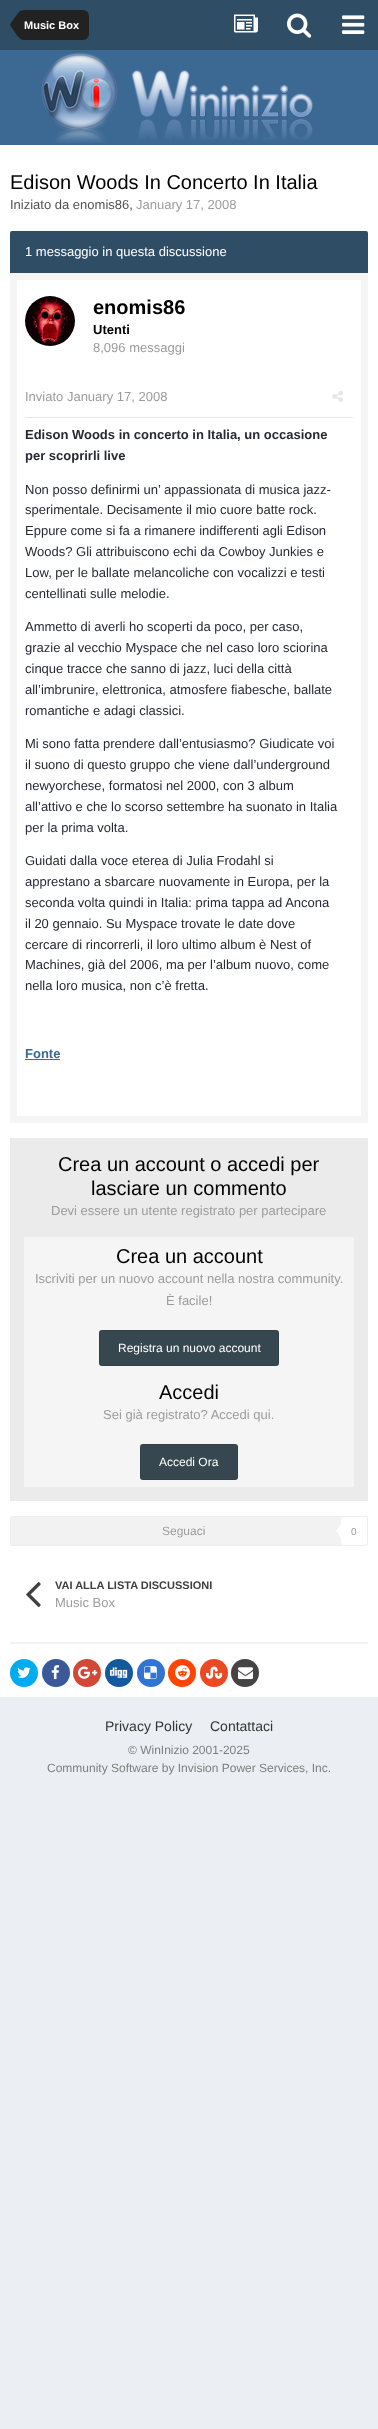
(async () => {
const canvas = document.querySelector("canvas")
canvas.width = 378
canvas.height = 2429
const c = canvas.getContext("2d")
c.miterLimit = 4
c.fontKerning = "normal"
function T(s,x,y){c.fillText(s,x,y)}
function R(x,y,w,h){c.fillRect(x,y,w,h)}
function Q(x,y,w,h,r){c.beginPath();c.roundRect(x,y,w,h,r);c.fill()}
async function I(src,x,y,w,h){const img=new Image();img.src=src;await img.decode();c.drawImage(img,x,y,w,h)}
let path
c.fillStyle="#ebeef2"
R(0,0,378,2429)
c.fillStyle="#304d66"
R(0,0,378,50)
c.fillStyle="#222"
c.beginPath()
c.roundRect(24,10,65,30,[0,6,6,0])
c.fill()
path = new Path2D("M24 25v15c-2 0-4.5-1.5-7-4.5l-7-10.5zm0 0h-14c0-1 8.5-12.5 9-13c1.5-1 3-2 5-2z")
c.fill(path)
c.font="bold 11px Liberation Sans"
c.fillStyle="#fff"
T("Music Box",24,29)
await I("1.png",234,14,24,19)
await I("2.png",287,13,25,25)
await I("3.png",342,15,23,19)
c.fillStyle="#3c6994"
R(0,50,378,95)
await I("4.png",41,53,272,90)
c.fillStyle="#fff"
R(0,145,378,1552)
c.font="20px Liberation Sans"
c.fillStyle="#000"
T("Edison Woods In Concerto In Italia",10,189)
c.font="13px Liberation Sans"
c.fillStyle="#525252"
T("Iniziato da enomis86,",10,209)
c.fillStyle="#9c9c9c"
T("January 17, 2008",136,209)
c.fillStyle="#304d66"
c.beginPath()
c.roundRect(10,231,358,42,[2,2,0,0])
c.fill()
c.fillStyle="#fff"
T("1 messaggio in questa discussione",25,256)
c.fillStyle="#f5f5f5"
R(10,273,358,850)
c.fillStyle="#fff"
R(17,280,344,836)
c.font="bold 20px Liberation Sans"
c.fillStyle="#000"
T("enomis86",93,314)
await I("5.png",25,296,50,50)
c.font="bold 13px Liberation Sans"
T("Utenti",93,334)
c.font="13px Liberation Sans"
c.fillStyle="#9c9c9c"
T("8,096 messaggi",93,352)
c.fillStyle="#e6e6e6"
R(25,417,328,1)
c.fillStyle="#9c9c9c"
T("Inviato January 17, 2008",25,401)
await I("6.png",332,391,11,11)
c.font="bold 13px Liberation Sans"
c.fillStyle="#272a34"
T("Edison Woods in concerto in Italia, un occasione",25,439)
T("per scoprirli live",25,460)
c.font="13px Liberation Sans"
T("Non posso definirmi un’ appassionata di musica jazz-",25,494)
T("sperimentale. Decisamente il mio cuore batte rock.",25,514)
T("Eppure come si fa a rimanere indifferenti agli Edison",25,535)
T("Woods? Gli attribuiscono echi da Cowboy Junkies e",25,556)
T("Low, per le ballate melancoliche con vocalizzi e testi",25,577)
T("centellinati sulle melodie.",25,598)
T("Ammetto di averli ho scoperti da poco, per caso,",25,631)
T("grazie al vecchio Myspace che nel caso loro sciorina",25,652)
T("cinque tracce che sanno di jazz, luci della città",25,673)
T("all’imbrunire, elettronica, atmosfere fiabesche, ballate",25,694)
T("romantiche e adagi classici.",25,715)
T("Mi sono fatta prendere dall’entusiasmo? Giudicate voi",25,748)
T("il suono di questo gruppo che viene dall’underground",25,769)
T("newyorchese, formatosi nel 2000, con 3 album",25,790)
T("all’attivo e che lo scorso settembre ha suonato in Italia",25,811)
T("per la prima volta.",25,832)
T("Guidati dalla voce eterea di Julia Frodahl si",25,865)
T("apprestano a sbarcare nuovamente in Europa, per la",25,886)
T("seconda volta quindi in Italia: prima tappa ad Ancona",25,907)
T("il 20 gennaio. Su Myspace trovate le date dove",25,928)
T("cercare di rincorrerli, il loro ultimo album è Nest of",25,949)
T("Machines, già del 2006, ma per l’album nuovo, come",25,969)
T("nella loro musica, non c’è fretta.",25,990)
c.font="bold 13px Liberation Sans"
c.fillStyle="#3c6994"
T("Fonte",25,1058)
R(25,1059,35,1)
c.fillStyle="#ebebeb"
R(10,1138,358,363)
c.font="20px Liberation Sans"
c.fillStyle="#000"
T("Crea un account o accedi per",58,1171)
T("lasciare un commento",91,1195)
c.font="13px Liberation Sans"
c.fillStyle="#9c9c9c"
T("Devi essere un utente registrato per partecipare",51,1215)
c.fillStyle="#f5f5f5"
R(24,1237,330,250)
c.font="20px Liberation Sans"
c.fillStyle="#000"
T("Crea un account",116,1263)
c.font="13px Liberation Sans"
c.fillStyle="#9c9c9c"
T("Iscriviti per un nuovo account nella nostra community.",35,1283)
T("È facile!",166,1305)
c.fillStyle="#37474f"
Q(99,1330,180,36,3)
c.beginPath()
c.roundRect(99.5,1330.5,179,35,2.5)
c.strokeStyle="#0000001a"
c.stroke()
c.font="12px Liberation Sans"
c.fillStyle="#fff"
T("Registra un nuovo account",118,1352)
c.font="20px Liberation Sans"
c.fillStyle="#000"
T("Accedi",159,1399)
c.font="13px Liberation Sans"
c.fillStyle="#9c9c9c"
T("Sei già registrato? Accedi qui.",103,1419)
c.fillStyle="#37474f"
Q(140,1444,98,36,3)
c.beginPath()
c.roundRect(140.5,1444.5,97,35,2.5)
c.stroke()
c.font="12px Liberation Sans"
c.fillStyle="#fff"
T("Accedi Ora",159,1466)
c.fillStyle="#f2f2f2"
Q(10,1516,358,30,3)
c.strokeStyle="#80808008"
c.strokeRect(10.5,1516.5,357,29)
c.fillStyle="#9c9c9c"
T("Seguaci",162,1535)
c.fillStyle="#fff"
Q(341,1517,26,28,3)
path = new Path2D("M341 1524v14l-5-7z")
c.fill(path)
c.font="10px Liberation Sans"
c.fillStyle="#9c9c9c"
T("0",351,1535)
await I("7.png",26,1582,15,25)
c.font="bold 11px Liberation Sans"
c.fillStyle="#404040"
T("VAI ALLA LISTA DISCUSSIONI",55,1589)
c.font="13px Liberation Sans"
c.fillStyle="#9c9c9c"
T("Music Box",55,1607)
c.fillStyle="#f2f2f2"
R(10,1642,358,2)
c.fillStyle="#00aced"
c.beginPath()
c.arc(24,1673,14,0,7)
c.fill()
await I("8.png",17,1667,14,11)
c.fillStyle="#3b5998"
c.beginPath()
c.arc(56,1673,14,0,7)
c.fill()
await I("9.png",51,1665,9,15)
c.fillStyle="#d14836"
c.beginPath()
c.arc(87,1673,14,0,7)
c.fill()
await I("10.png",78,1666,20,13)
c.fillStyle="#14589e"
c.beginPath()
c.arc(119,1673,14,0,7)
c.fill()
await I("11.png",110,1667,18,11)
c.fillStyle="#3274d1"
c.beginPath()
c.arc(151,1673,14,0,7)
c.fill()
await I("12.png",144,1666,13,14)
c.fillStyle="#ff4500"
c.beginPath()
c.arc(182,1673,14,0,7)
c.fill()
await I("13.png",175,1665,15,16)
c.fillStyle="#eb4924"
c.beginPath()
c.arc(214,1673,14,0,7)
c.fill()
await I("14.png",206,1666,17,13)
c.fillStyle="#444"
c.beginPath()
c.arc(245,1673,14,0,7)
c.fill()
await I("15.png",238,1667,15,13)
c.font="14px Liberation Sans"
c.fillStyle="#333"
T("Privacy Policy",105,1731)
T("Contattaci",210,1731)
c.font="12px Liberation Sans"
c.fillStyle="#7d7e7f"
T("© WinInizio 2001-2025",128,1754)
T("Community Software by Invision Power Services, Inc.",47,1772)
})()
